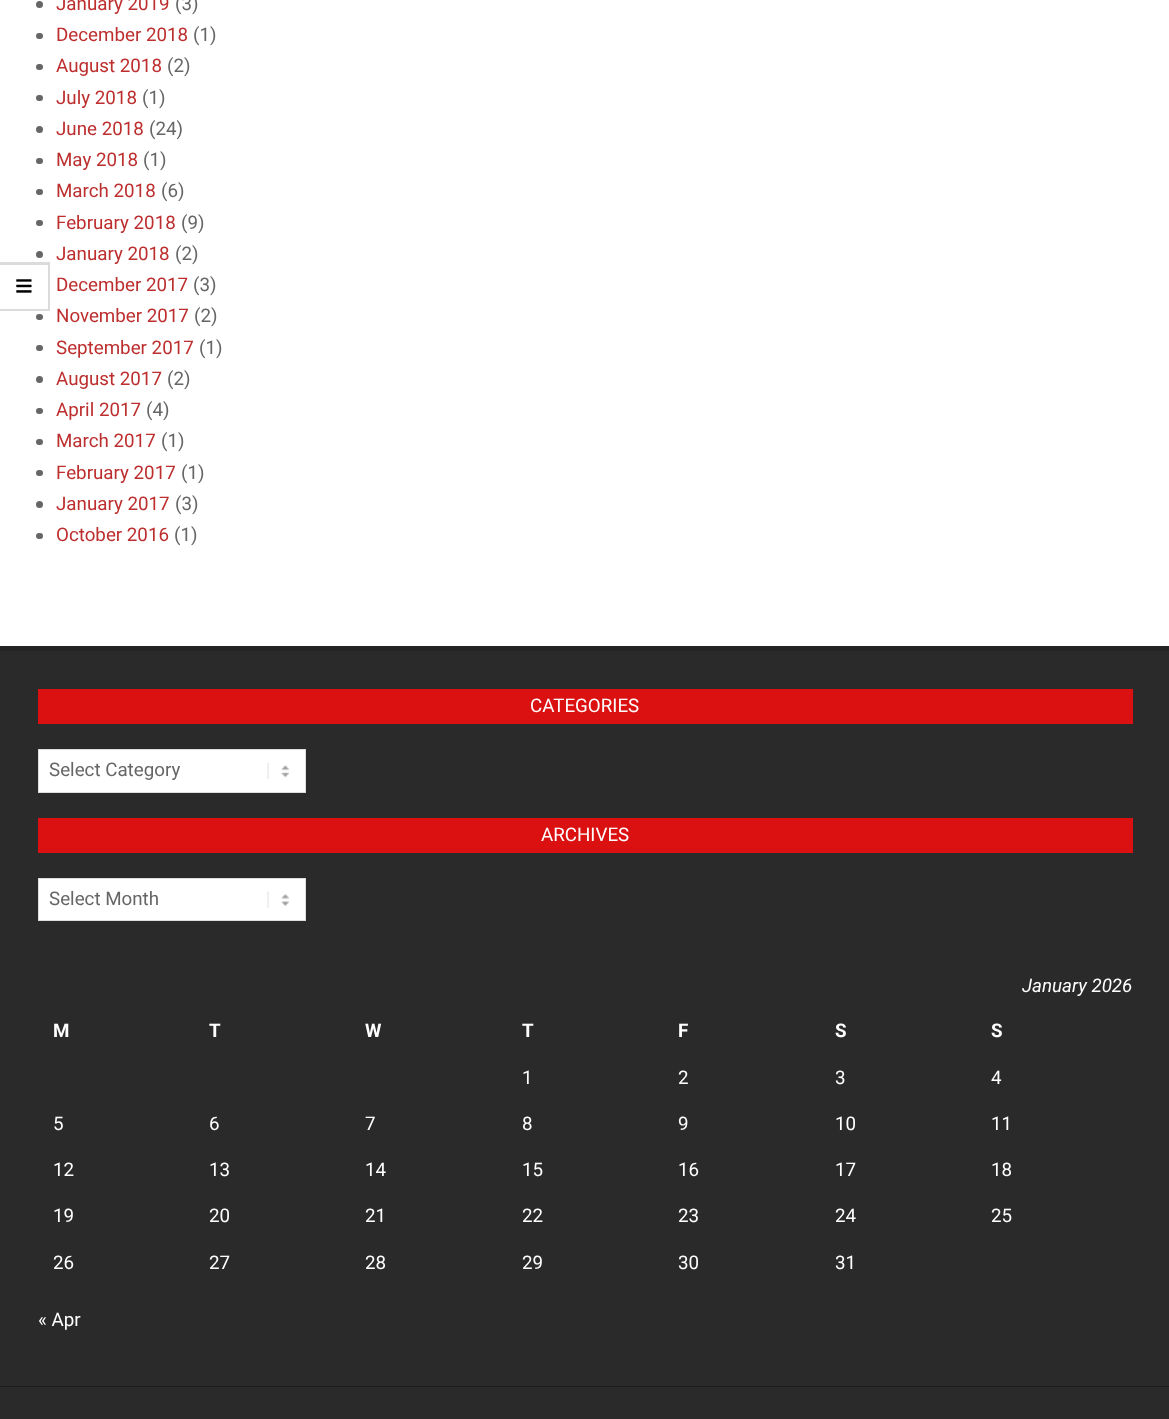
(async () => {
const canvas = document.querySelector("canvas")
canvas.width = 1169
canvas.height = 1419
const c = canvas.getContext("2d")
c.miterLimit = 4
c.fontKerning = "normal"
function T(s,x,y){c.fillText(s,x,y)}
function R(x,y,w,h){c.fillRect(x,y,w,h)}
function Q(x,y,w,h,r){c.beginPath();c.roundRect(x,y,w,h,r);c.fill()}
async function I(src,x,y,w,h){const img=new Image();img.src=src;await img.decode();c.drawImage(img,x,y,w,h)}
let path
c.fillStyle="#fff"
R(0,0,1169,1419)
c.fillStyle="#dbdbdb"
path = new Path2D("M0 262h50l-2 3h-48z")
c.fill(path)
c.fillStyle="#00000024"
path = new Path2D("M50 262v49l-2-2v-44z")
c.fill(path)
path = new Path2D("M50 311h-50v-2h48z")
c.fill(path)
await I("1.png",16,279,16,14)
c.fillStyle="#666"
c.beginPath()
c.arc(39.5,4.5,3.5,0,7)
c.fill()
c.font="18.75px Roboto"
c.fillStyle="#bd2e2e"
T("January 2019",56,10)
c.fillStyle="#666"
T("(3)",175,10)
Q(36,33,7,6,3)
c.fillStyle="#bd2e2e"
T("December 2018",56,41)
c.fillStyle="#666"
T("(1)",193,41)
Q(36,64,7,6,3)
c.fillStyle="#bd2e2e"
T("August 2018",56,72)
c.fillStyle="#666"
T("(2)",167,72)
Q(36,95,7,6,3)
c.fillStyle="#bd2e2e"
T("July 2018",56,104)
c.fillStyle="#666"
T("(1)",142,104)
c.beginPath()
c.arc(39.5,129.5,3.5,0,7)
c.fill()
c.fillStyle="#bd2e2e"
T("June 2018",56,135)
c.fillStyle="#666"
T("(24)",149,135)
Q(36,158,7,6,3)
c.fillStyle="#bd2e2e"
T("May 2018",56,166)
c.fillStyle="#666"
T("(1)",143,166)
Q(36,189,7,6,3)
c.fillStyle="#bd2e2e"
T("March 2018",56,197)
c.fillStyle="#666"
T("(6)",161,197)
Q(36,220,7,6,3)
c.fillStyle="#bd2e2e"
T("February 2018",56,229)
c.fillStyle="#666"
T("(9)",181,229)
c.beginPath()
c.arc(39.5,254.5,3.5,0,7)
c.fill()
c.fillStyle="#bd2e2e"
T("January 2018",56,260)
c.fillStyle="#666"
T("(2)",175,260)
c.fillStyle="#bd2e2e"
T("December 2017",56,291)
c.fillStyle="#666"
T("(3)",193,291)
Q(36,314,7,6,3)
c.fillStyle="#bd2e2e"
T("November 2017",56,322)
c.fillStyle="#666"
T("(2)",194,322)
Q(36,345,7,6,3)
c.fillStyle="#bd2e2e"
T("September 2017",56,354)
c.fillStyle="#666"
T("(1)",199,354)
c.beginPath()
c.arc(39.5,379.5,3.5,0,7)
c.fill()
c.fillStyle="#bd2e2e"
T("August 2017",56,385)
c.fillStyle="#666"
T("(2)",167,385)
Q(36,408,7,6,3)
c.fillStyle="#bd2e2e"
T("April 2017",56,416)
c.fillStyle="#666"
T("(4)",146,416)
Q(36,439,7,6,3)
c.fillStyle="#bd2e2e"
T("March 2017",56,447)
c.fillStyle="#666"
T("(1)",161,447)
Q(36,470,7,6,3)
c.fillStyle="#bd2e2e"
T("February 2017",56,479)
c.fillStyle="#666"
T("(1)",181,479)
c.beginPath()
c.arc(39.5,504.5,3.5,0,7)
c.fill()
c.fillStyle="#bd2e2e"
T("January 2017",56,510)
c.fillStyle="#666"
T("(3)",175,510)
Q(36,533,7,6,3)
c.fillStyle="#bd2e2e"
T("October 2016",56,541)
c.fillStyle="#666"
T("(1)",174,541)
c.fillStyle="#2a2a2a"
R(0,651,1169,735)
c.fillStyle="#242424"
R(0,646,1169,5)
c.fillStyle="#db1010"
R(38,689,1095,35)
c.fillStyle="#fff"
T("CATEGORIES",530,712)
R(39,750,266,42)
await I("2.png",267,763,23,16)
c.strokeStyle="#ddd"
c.strokeRect(38.5,749.5,267,43)
c.fillStyle="#666"
T("Select Category",49,776)
c.fillStyle="#db1010"
R(38,818,1095,35)
c.fillStyle="#fff"
T("ARCHIVES",541,841)
R(39,879,266,41)
await I("3.png",267,891,23,17)
c.strokeRect(38.5,878.5,267,42)
c.fillStyle="#666"
T("Select Month",49,905)
c.font="italic 18.75px Roboto"
c.fillStyle="#fff"
T("January 2026",1022,992)
c.letterSpacing="2px"
c.font="bold 18.75px Roboto"
T("M",53,1037)
T("T",209,1037)
T("W",365,1037)
T("T",522,1037)
T("F",678,1037)
T("S",835,1037)
T("S",991,1037)
c.letterSpacing="0px"
c.font="18.75px Roboto"
T("1",522,1084)
T("2",678,1084)
T("3",835,1084)
T("4",991,1084)
T("5",53,1130)
T("6",209,1130)
T("7",365,1130)
T("8",522,1130)
T("9",678,1130)
T("10",835,1130)
T("11",991,1130)
T("12",53,1176)
T("13",209,1176)
T("14",365,1176)
T("15",522,1176)
T("16",678,1176)
T("17",835,1176)
T("18",991,1176)
T("19",53,1222)
T("20",209,1222)
T("21",365,1222)
T("22",522,1222)
T("23",678,1222)
T("24",835,1222)
T("25",991,1222)
T("26",53,1269)
T("27",209,1269)
T("28",365,1269)
T("29",522,1269)
T("30",678,1269)
T("31",835,1269)
T("« Apr",38,1326)
c.fillStyle="#2a2a2a"
R(0,1387,1169,32)
c.fillStyle="#1c1c1c"
R(0,1386,1169,1)
})()
